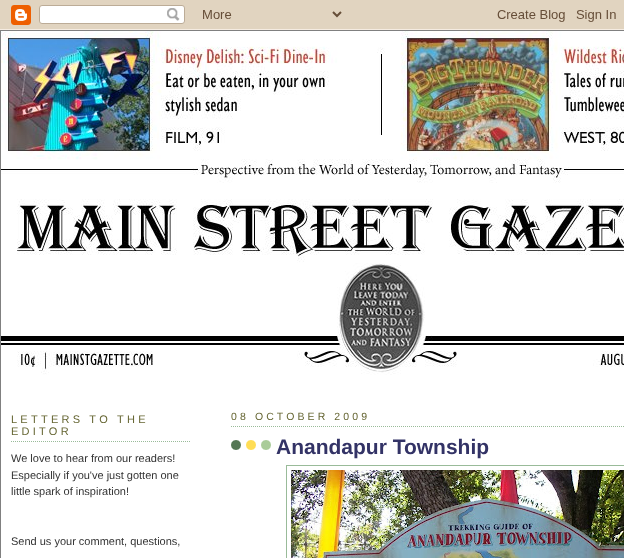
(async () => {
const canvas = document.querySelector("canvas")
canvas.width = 624
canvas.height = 558
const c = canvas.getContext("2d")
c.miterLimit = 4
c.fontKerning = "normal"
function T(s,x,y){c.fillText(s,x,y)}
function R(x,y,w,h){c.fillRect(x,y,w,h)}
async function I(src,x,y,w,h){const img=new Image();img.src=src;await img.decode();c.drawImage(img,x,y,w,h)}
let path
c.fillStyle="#fff"
R(0,0,624,558)
await I("1.png",0,0,624,30)
c.strokeStyle="#808080"
c.strokeRect(.5,30.5,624,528)
await I("2.png",1,31,623,344)
path = new Path2D("M11 441.5h180")
c.strokeStyle="#9b9"
c.setLineDash([1,1])
c.stroke(path)
c.letterSpacing="3.25px"
c.font="11px Liberation Sans"
c.fillStyle="#663"
T("LETTERS TO THE",11,423)
T("EDITOR",11,435)
c.letterSpacing="0px"
c.fillStyle="#333"
T("We love to hear from our readers!",11,462)
T("Especially if you've just gotten one",11,479)
T("little spark of inspiration!",11,495)
T("Send us your comment, questions,",11,545)
path = new Path2D("M231 426.5h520")
c.stroke(path)
c.letterSpacing="3.1px"
c.font="10.5px Liberation Sans"
c.fillStyle="#663"
T("08 OCTOBER 2009",231,420)
await I("3.png",231,440,40,10)
c.letterSpacing="0px"
c.font="bold 21px Liberation Sans"
c.fillStyle="#336"
T("Anandapur Township",276,454)
c.setLineDash([])
c.strokeRect(286.5,465.5,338,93)
await I("4.png",291,470,333,88)
})()
